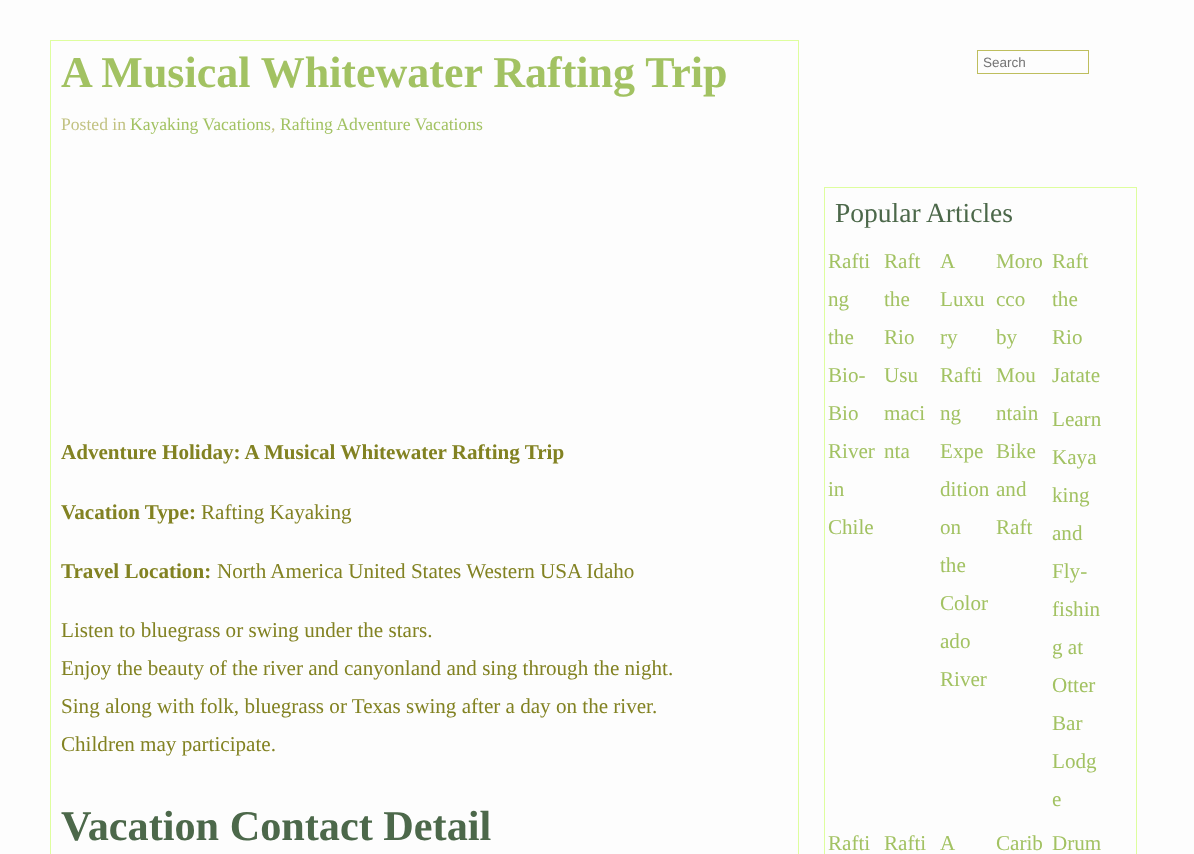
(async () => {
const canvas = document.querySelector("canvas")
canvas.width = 1194
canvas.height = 854
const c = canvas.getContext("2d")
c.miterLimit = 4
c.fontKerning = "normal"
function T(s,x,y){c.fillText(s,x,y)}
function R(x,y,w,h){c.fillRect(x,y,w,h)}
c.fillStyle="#fdfdfd"
R(0,0,1194,854)
c.strokeStyle="#defe9e"
c.strokeRect(50.5,40.5,748,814)
c.font="bold 44px Liberation Serif"
c.fillStyle="#a2c262"
T("A Musical Whitewater Rafting Trip",61,87)
c.font="17.6px Liberation Serif"
c.fillStyle="#c2c282"
T("Posted in",61,130)
c.fillStyle="#a2c262"
T("Kayaking Vacations",130,130)
c.fillStyle="#c2c282"
T(",",271,130)
c.fillStyle="#a2c262"
T("Rafting Adventure Vacations",280,130)
c.font="bold 21.1px Liberation Serif"
c.fillStyle="#828222"
T("Adventure Holiday: A Musical Whitewater Rafting Trip",61,459)
T("Vacation Type:",61,519)
c.font="21.1px Liberation Serif"
T("Rafting Kayaking",201,519)
c.font="bold 21.1px Liberation Serif"
T("Travel Location:",61,578)
c.font="21.1px Liberation Serif"
T("North America United States Western USA Idaho",217,578)
T("Listen to bluegrass or swing under the stars.",61,637)
T("Enjoy the beauty of the river and canyonland and sing through the night.",61,675)
T("Sing along with folk, bluegrass or Texas swing after a day on the river.",61,713)
T("Children may participate.",61,751)
c.font="bold 42.25px Liberation Serif"
c.fillStyle="#4c684a"
T("Vacation Contact Detail",61,840)
c.strokeRect(824.5,187.5,312,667)
c.font="27.5px Liberation Serif"
T("Popular Articles",835,222)
c.font="21.1px Liberation Serif"
c.fillStyle="#a2c262"
T("Rafti",828,268)
T("ng",828,306)
T("the",828,344)
T("Bio-",828,382)
T("Bio",828,420)
T("River",828,458)
T("in",828,496)
T("Chile",828,534)
T("Raft",884,268)
T("the",884,306)
T("Rio",884,344)
T("Usu",884,382)
T("maci",884,420)
T("nta",884,458)
T("A",940,268)
T("Luxu",940,306)
T("ry",940,344)
T("Rafti",940,382)
T("ng",940,420)
T("Expe",940,458)
T("dition",940,496)
T("on",940,534)
T("the",940,572)
T("Color",940,610)
T("ado",940,648)
T("River",940,686)
T("Moro",996,268)
T("cco",996,306)
T("by",996,344)
T("Mou",996,382)
T("ntain",996,420)
T("Bike",996,458)
T("and",996,496)
T("Raft",996,534)
T("Raft",1052,268)
T("the",1052,306)
T("Rio",1052,344)
T("Jatate",1052,382)
T("Learn",1052,426)
T("Kaya",1052,464)
T("king",1052,502)
T("and",1052,540)
T("Fly-",1052,578)
T("fishin",1052,616)
T("g at",1052,654)
T("Otter",1052,692)
T("Bar",1052,730)
T("Lodg",1052,768)
T("e",1052,806)
T("Rafti",828,850)
T("Rafti",884,850)
T("A",940,850)
T("Carib",996,850)
T("Drum",1052,850)
c.strokeStyle="#bebe5e"
c.strokeRect(977.5,50.5,111,23)
c.font="13.5px Liberation Sans"
c.fillStyle="#757575"
T("Search",983,67)
})()
